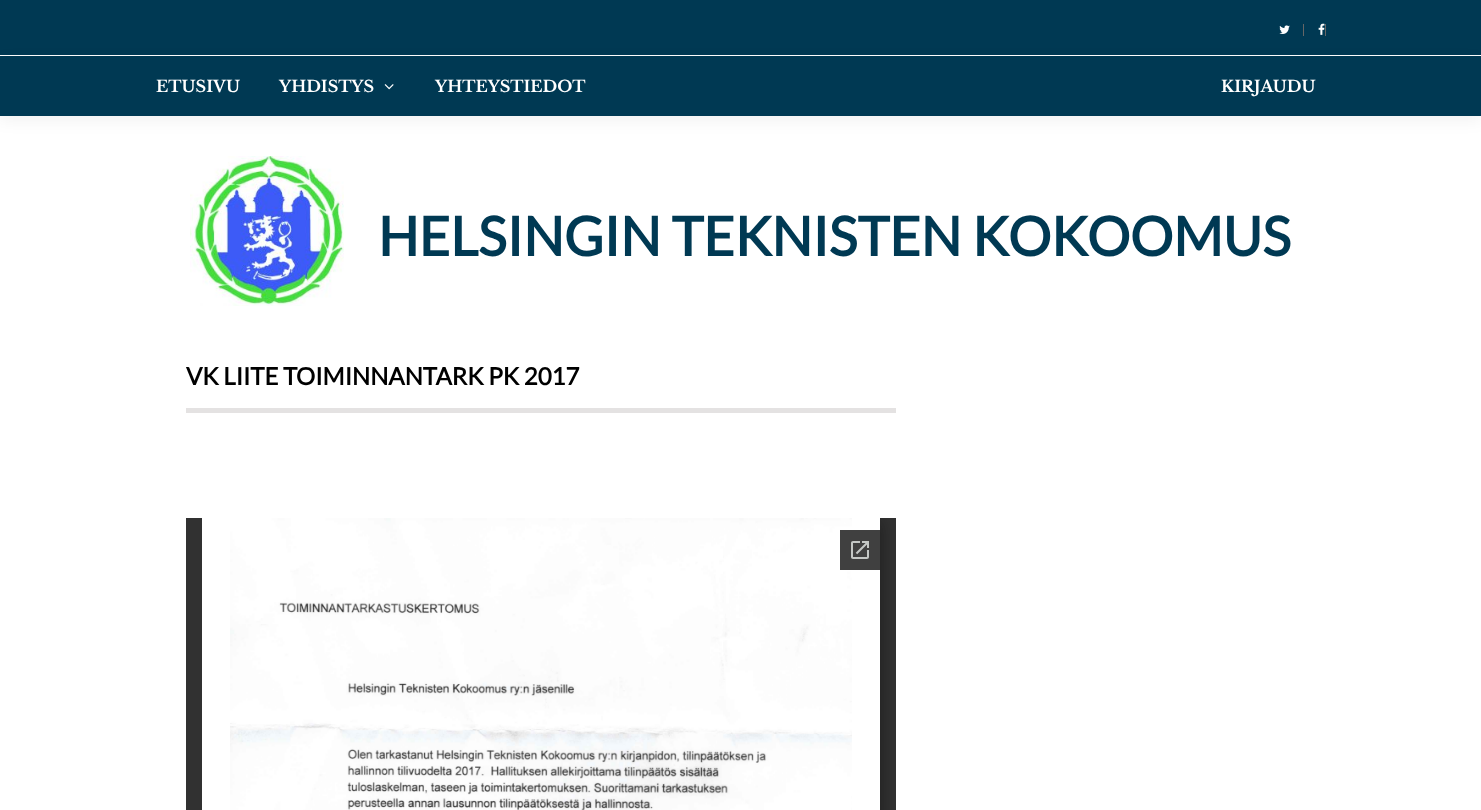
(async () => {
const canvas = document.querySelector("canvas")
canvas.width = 1481
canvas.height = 810
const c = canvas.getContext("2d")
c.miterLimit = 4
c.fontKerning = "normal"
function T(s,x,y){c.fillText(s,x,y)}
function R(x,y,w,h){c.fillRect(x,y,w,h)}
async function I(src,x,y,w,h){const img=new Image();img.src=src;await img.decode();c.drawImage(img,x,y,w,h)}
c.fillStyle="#fff"
R(0,0,1481,810)
c.fillStyle="#003953"
R(0,0,1481,55)
c.fillStyle="#666"
R(1303,24,1,12)
await I("1.png",1279,25,11,9)
R(1325,24,1,12)
await I("2.png",1318,23,7,12)
c.fillStyle="#0000000d"
c.filter="blur(7.5px)"
c.beginPath()
c.rect(0,61,1481,60)
c.fill()
c.filter="none"
c.fillStyle="#003953"
R(0,56,1481,60)
c.font="bold 16px Libre Baskerville"
c.fillStyle="#fff"
T("ETUSIVU",156,92)
T("YHDISTYS",279,92)
await I("3.png",384,84,10,6)
T("YHTEYSTIEDOT",435,92)
T("KIRJAUDU",1221,92)
await I("4.png",190,156,154,150)
c.font="bold 54px Lato"
c.fillStyle="#003953"
T("HELSINGIN TEKNISTEN KOKOOMUS",378,256)
c.fillStyle="#e4e2e2"
R(186,408,710,5)
c.font="bold 24px Lato"
c.fillStyle="#000"
T("VK LIITE TOIMINNANTARK PK 2017",186,385)
await I("5.png",186,518,710,292)
})()
